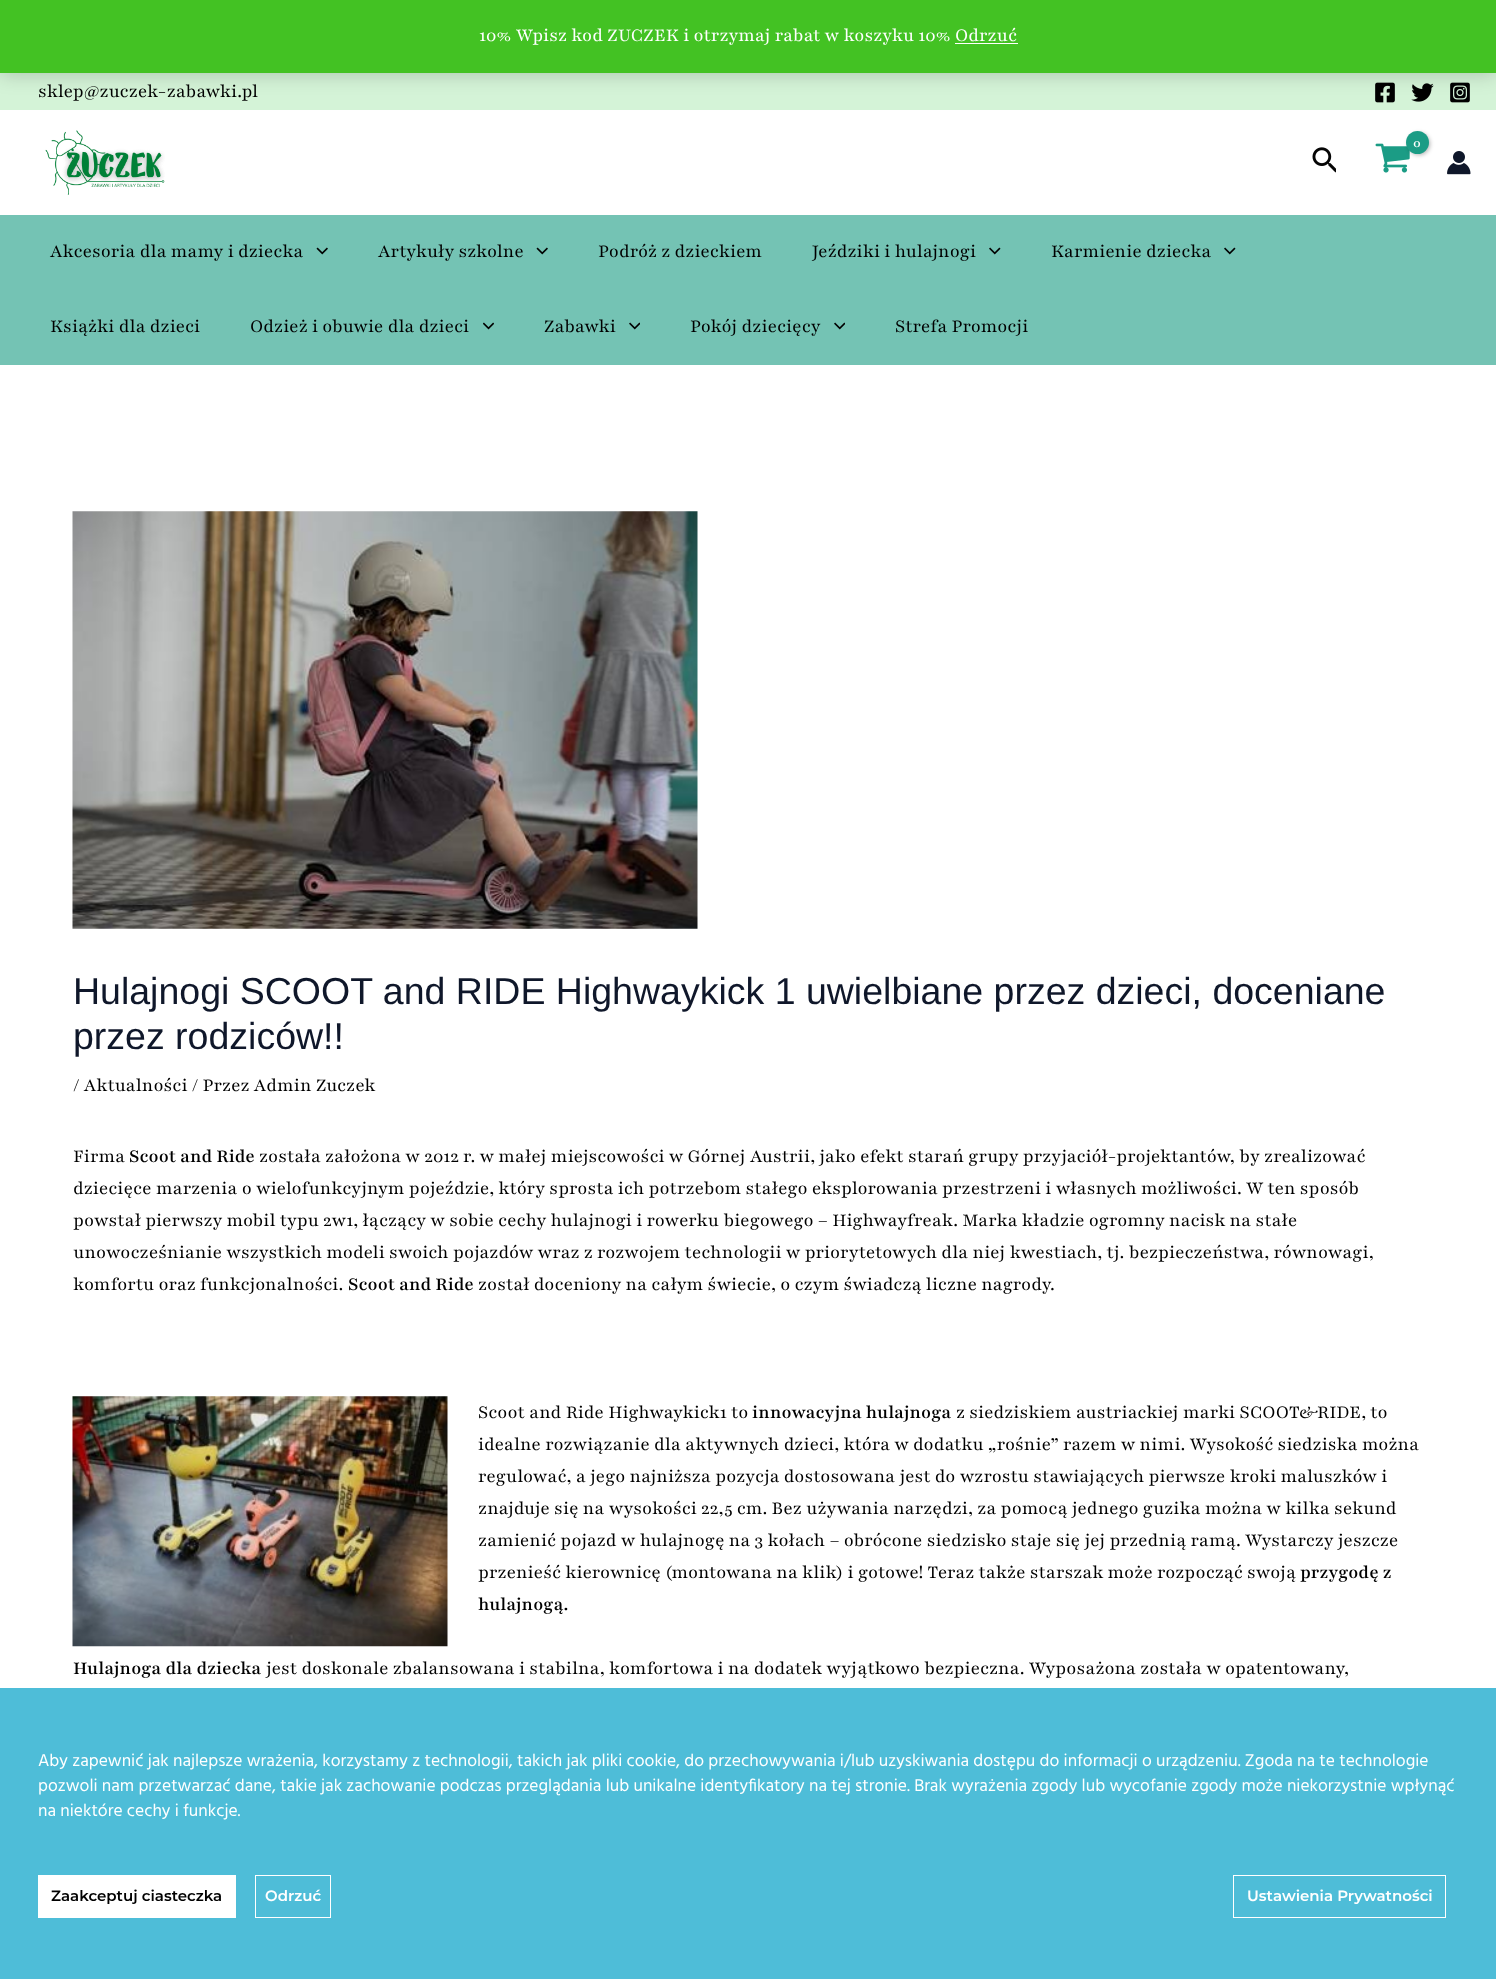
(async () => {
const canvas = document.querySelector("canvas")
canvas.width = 1496
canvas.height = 1979
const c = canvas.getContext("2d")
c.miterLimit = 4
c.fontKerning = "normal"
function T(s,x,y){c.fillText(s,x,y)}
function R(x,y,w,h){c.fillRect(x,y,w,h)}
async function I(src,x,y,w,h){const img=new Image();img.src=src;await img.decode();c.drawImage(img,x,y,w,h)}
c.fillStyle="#fff"
R(0,0,1496,1979)
c.fillStyle="#d4f3d7"
R(0,73,1496,37)
await I("1.png",1375,82,20,21)
await I("2.png",1411,83,23,19)
await I("3.png",1450,82,20,21)
c.fillStyle="#00000033"
c.filter="blur(10px)"
c.beginPath()
c.rect(0,1,1496,73)
c.fill()
c.filter="none"
c.fillStyle="#43c223"
R(0,0,1496,73)
c.font="20px 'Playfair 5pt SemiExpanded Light'"
c.fillStyle="#fff"
T("10% Wpisz kod ZUCZEK i otrzymaj rabat w koszyku 10% Odrzuć",479,41)
R(955,43,63,1)
c.fillStyle="#000"
T("sklep@zuczek-zabawki.pl",38,97)
await I("4.png",45,130,120,65)
await I("5.png",1375,143,35,30)
c.fillStyle="#0000004d"
c.filter="blur(2px)"
c.beginPath()
c.roundRect(1408,133,22,22,11)
c.fill()
c.filter="none"
c.fillStyle="#1b9c85"
c.beginPath()
c.arc(1417.5,142.5,11.5,0,7)
c.fill()
c.letterSpacing="-1px"
c.font="600 14px 'Playfair 5pt SemiExpanded Light'"
c.fillStyle="#fff"
T("0",1413,147)
await I("6.png",1312,147,24,26)
await I("7.png",1447,151,24,24)
c.fillStyle="#74c3b4"
R(0,215,1496,150)
c.letterSpacing="0px"
c.font="20px 'Playfair 5pt SemiExpanded Light'"
c.fillStyle="#000"
T("Akcesoria dla mamy i dziecka",50,257)
await I("8.png",316,247,12,8)
T("Artykuły szkolne",378,257)
await I("8.png",536,247,12,8)
T("Podróż z dzieckiem",598,257)
T("Jeździki i hulajnogi",812,257)
await I("9.png",989,247,12,8)
T("Karmienie dziecka",1051,257)
await I("9.png",1224,247,12,8)
T("Książki dla dzieci",50,332)
T("Odzież i obuwie dla dzieci",250,332)
await I("10.png",483,322,11,8)
T("Zabawki",544,332)
await I("11.png",629,322,11,8)
T("Pokój dziecięcy",690,332)
await I("11.png",834,322,11,8)
T("Strefa Promocji",895,332)
await I("12.png",72,511,626,418)
c.font="37.5px Liberation Sans"
c.fillStyle="#0f172a"
T("Hulajnogi SCOOT and RIDE Highwaykick 1 uwielbiane przez dzieci, doceniane",73,1004)
T("przez rodziców!!",73,1049)
c.font="20px 'Playfair 5pt SemiExpanded Light'"
c.fillStyle="#000"
T("/ Aktualności / Przez Admin Zuczek",73,1091)
T("Firma",73,1162)
c.font="600 20px 'Playfair 5pt SemiExpanded Light'"
T("Scoot and Ride",129,1162)
c.font="20px 'Playfair 5pt SemiExpanded Light'"
T("została założona w 2012 r. w małej miejscowości w Górnej Austrii, jako efekt starań grupy przyjaciół-projektantów, by zrealizować",259,1162)
T("dziecięce marzenia o wielofunkcyjnym pojeździe, który sprosta ich potrzebom stałego eksplorowania przestrzeni i własnych możliwości. W ten sposób",73,1194)
T("powstał pierwszy mobil typu 2w1, łączący w sobie cechy hulajnogi i rowerku biegowego – Highwayfreak. Marka kładzie ogromny nacisk na stałe",73,1226)
T("unowocześnianie wszystkich modeli swoich pojazdów wraz z rozwojem technologii w priorytetowych dla niej kwestiach, tj. bezpieczeństwa, równowagi,",73,1258)
T("komfortu oraz funkcjonalności.",73,1290)
c.font="600 20px 'Playfair 5pt SemiExpanded Light'"
T("Scoot and Ride",348,1290)
c.font="20px 'Playfair 5pt SemiExpanded Light'"
T("został doceniony na całym świecie, o czym świadczą liczne nagrody.",478,1290)
await I("13.png",72,1396,376,251)
T("Scoot and Ride Highwaykick1 to",478,1418)
c.font="600 20px 'Playfair 5pt SemiExpanded Light'"
T("innowacyjna hulajnoga",752,1418)
c.font="20px 'Playfair 5pt SemiExpanded Light'"
T("z siedziskiem austriackiej marki SCOOT&RIDE, to",956,1418)
T("idealne rozwiązanie dla aktywnych dzieci, która w dodatku „rośnie” razem w nimi. Wysokość siedziska można",478,1450)
T("regulować, a jego najniższa pozycja dostosowana jest do wzrostu stawiających pierwsze kroki maluszków i",478,1482)
T("znajduje się na wysokości 22,5 cm. Bez używania narzędzi, za pomocą jednego guzika można w kilka sekund",478,1514)
T("zamienić pojazd w hulajnogę na 3 kołach – obrócone siedzisko staje się jej przednią ramą. Wystarczy jeszcze",478,1546)
T("przenieść kierownicę (montowana na klik) i gotowe! Teraz także starszak może rozpocząć swoją",478,1578)
c.font="600 20px 'Playfair 5pt SemiExpanded Light'"
T("przygodę z",1300,1578)
T("hulajnogą.",478,1610)
T("Hulajnoga dla dziecka",73,1674)
c.font="20px 'Playfair 5pt SemiExpanded Light'"
T("jest doskonale zbalansowana i stabilna, komfortowa i na dodatek wyjątkowo bezpieczna. Wyposażona została w opatentowany,",266,1674)
c.fillStyle="#4ebdd8"
R(0,1688,1496,291)
c.font="17.5px Hind"
c.fillStyle="#fff"
T("Aby zapewnić jak najlepsze wrażenia, korzystamy z technologii, takich jak pliki cookie, do przechowywania i/lub uzyskiwania dostępu do informacji o urządzeniu. Zgoda na te technologie",38,1766)
T("pozwoli nam przetwarzać dane, takie jak zachowanie podczas przeglądania lub unikalne identyfikatory na tej stronie. Brak wyrażenia zgody lub wycofanie zgody może niekorzystnie wpłynąć",38,1791)
T("na niektóre cechy i funkcje.",38,1816)
R(38,1875,198,43)
c.font="600 15px Montserrat"
c.fillStyle="#000"
T("Zaakceptuj ciasteczka",51,1901)
c.strokeStyle="#fff"
c.strokeRect(255.5,1875.5,75,42)
c.fillStyle="#fff"
T("Odrzuć",265,1901)
c.strokeRect(1233.5,1875.5,212,42)
T("Ustawienia Prywatności",1247,1901)
})()
